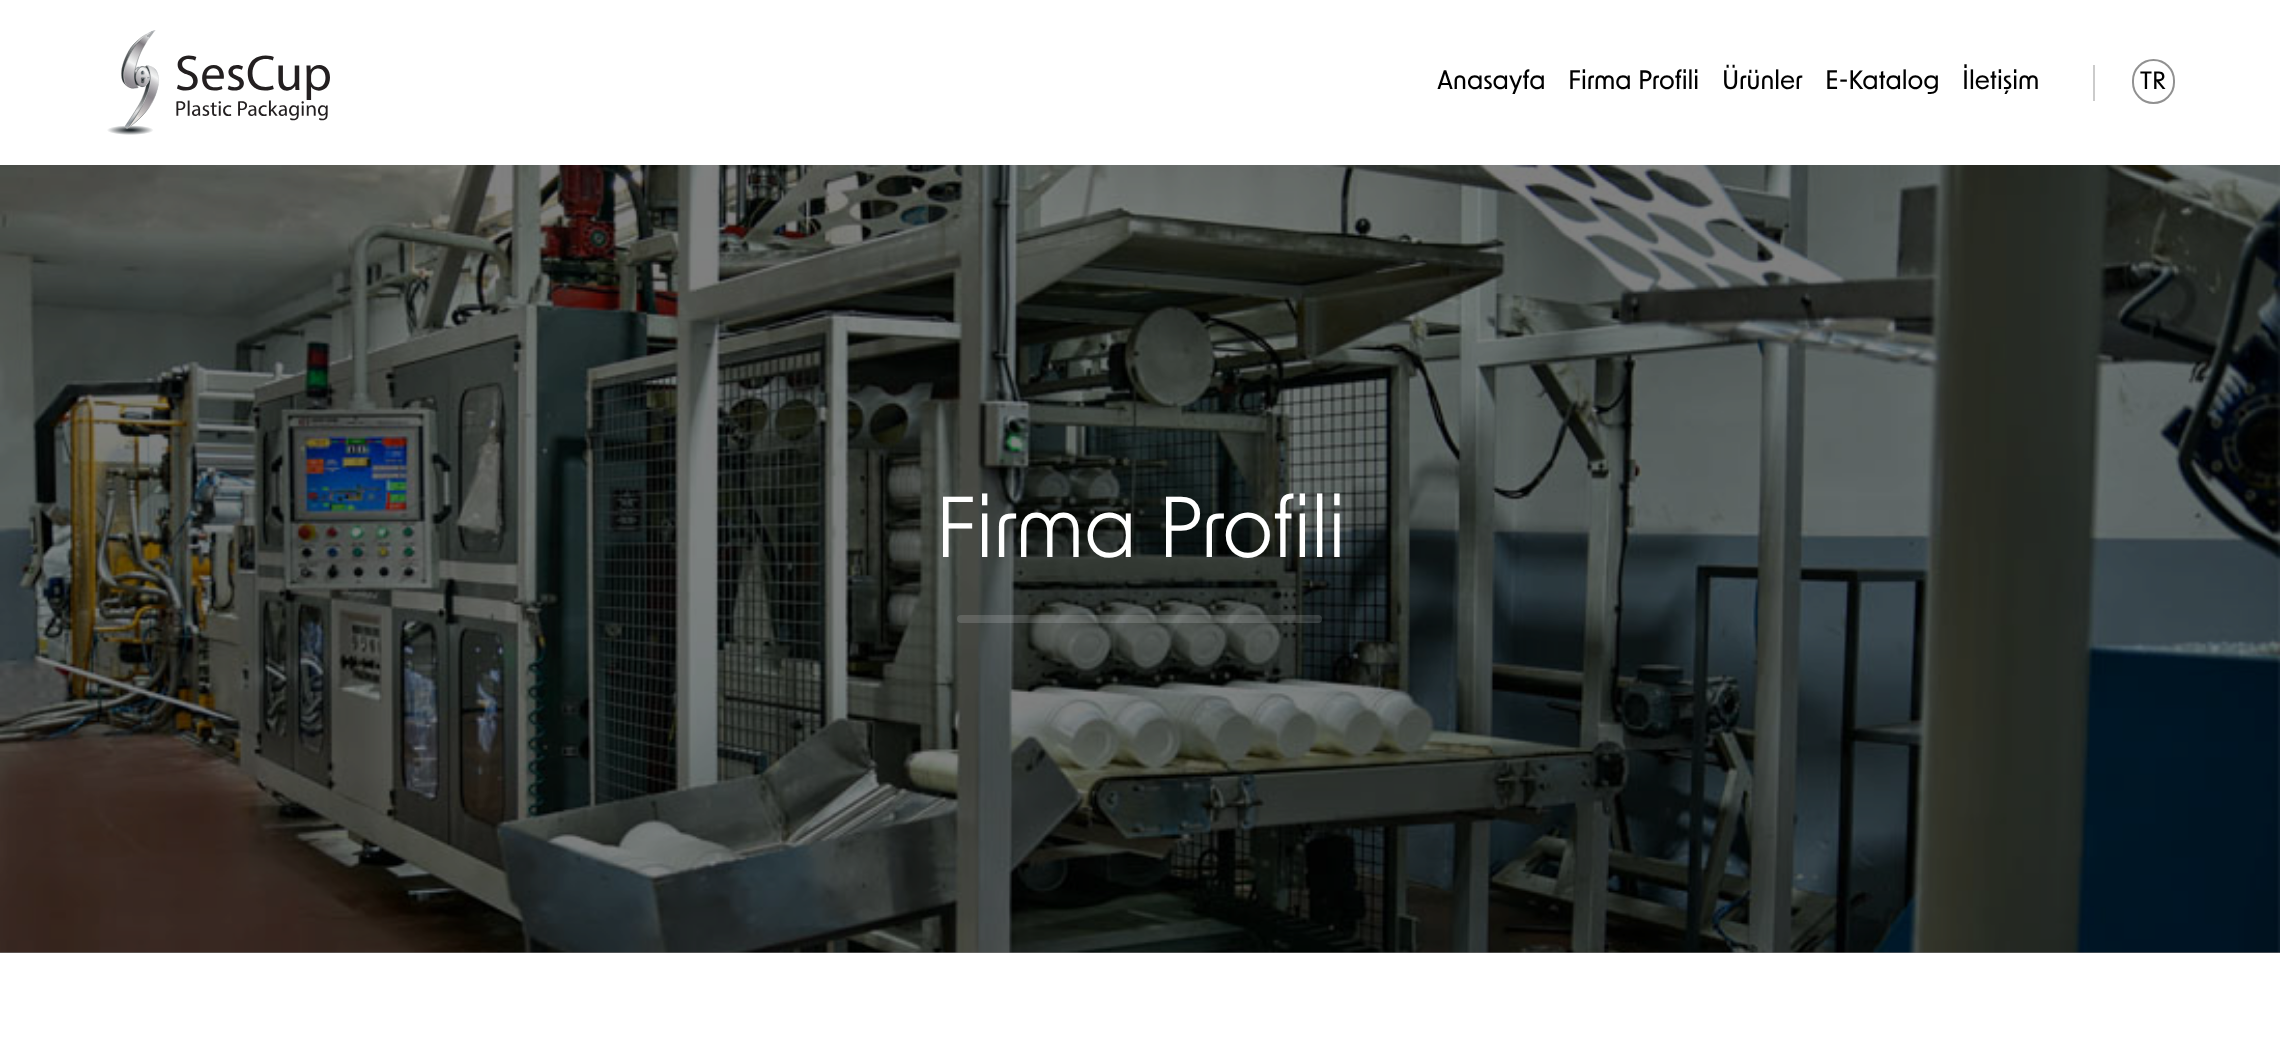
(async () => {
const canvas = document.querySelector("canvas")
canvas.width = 2280
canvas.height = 1057
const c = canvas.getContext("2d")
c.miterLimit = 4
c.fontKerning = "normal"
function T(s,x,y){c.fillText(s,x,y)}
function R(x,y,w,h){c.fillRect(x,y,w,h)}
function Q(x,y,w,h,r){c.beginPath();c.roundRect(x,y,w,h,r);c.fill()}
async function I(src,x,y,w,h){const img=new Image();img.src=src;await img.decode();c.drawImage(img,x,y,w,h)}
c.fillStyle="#fff"
R(0,0,2280,1057)
c.fillStyle="#808080"
R(0,952,2280,1)
await I("1.png",107,30,223,105)
c.font="500 25.5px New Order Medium"
c.fillStyle="#000"
T("Anasayfa",1437,89)
T("Firma Profili",1568,89)
T("Ürünler",1722,89)
T("E-Katalog",1825,89)
T("İletişim",1962,89)
c.fillStyle="#cbcbcb"
R(2093,65,2,36)
c.beginPath()
c.roundRect(2133,60,41,43,20.5)
c.strokeStyle="#919191"
c.lineWidth=2
c.stroke()
c.font="500 24px New Order Medium"
c.fillStyle="#000"
T("TR",2140,89)
await I("2.png",0,165,2280,788)
c.font="82.5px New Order"
c.fillStyle="#fff"
T("Firma Profili",935,557)
c.fillStyle="#ffffff26"
Q(957,615,365,8,4)
})()
